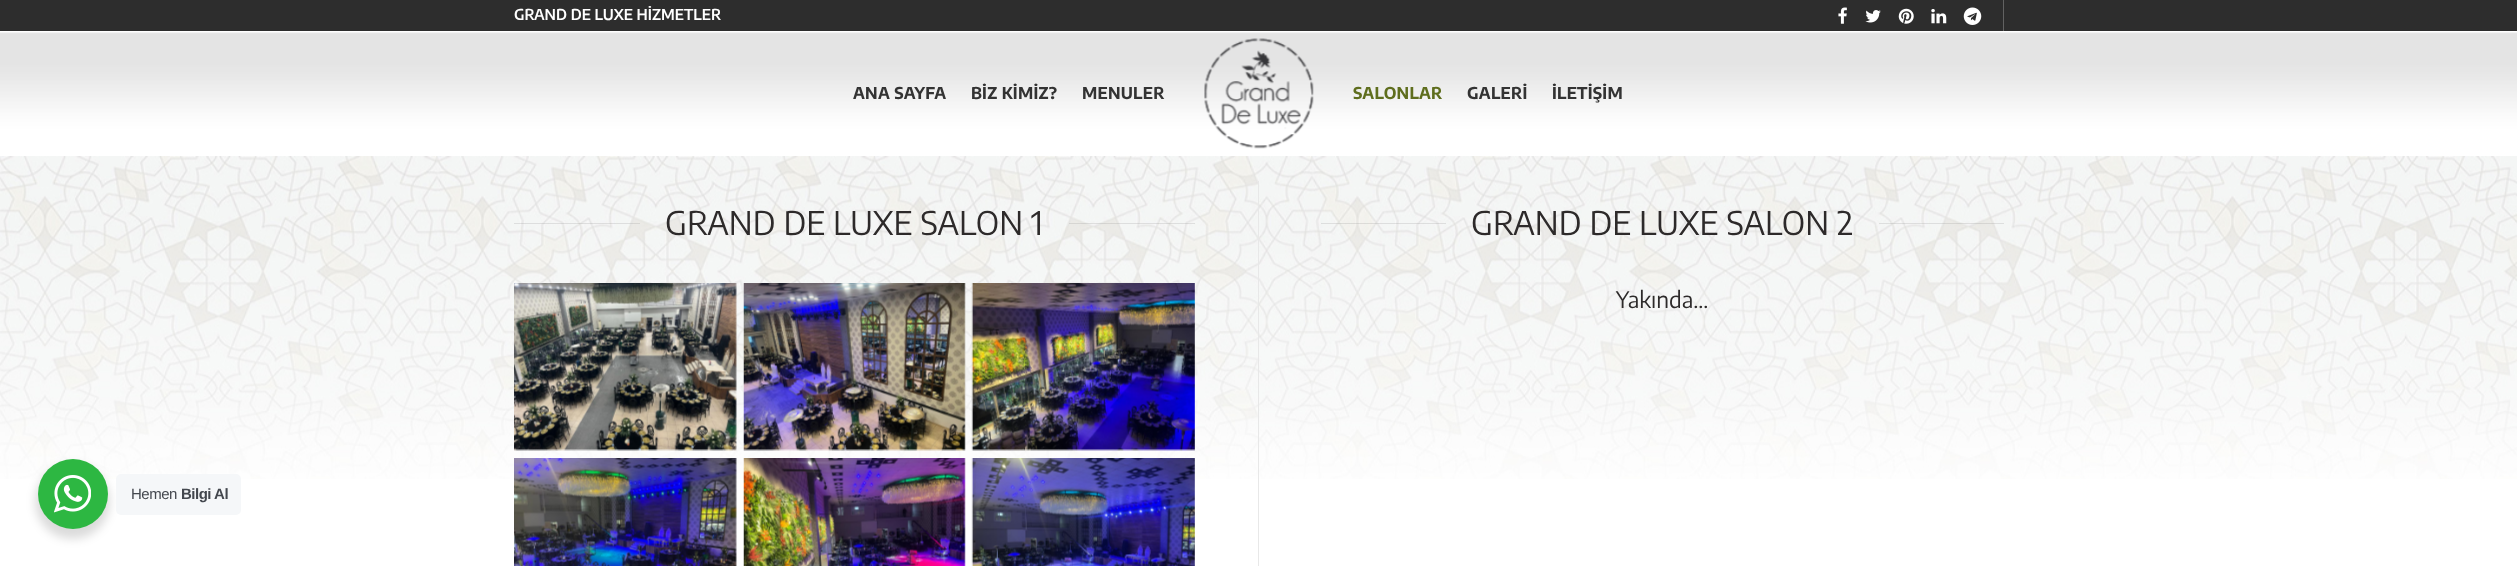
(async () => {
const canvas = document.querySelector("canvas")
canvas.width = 2517
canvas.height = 566
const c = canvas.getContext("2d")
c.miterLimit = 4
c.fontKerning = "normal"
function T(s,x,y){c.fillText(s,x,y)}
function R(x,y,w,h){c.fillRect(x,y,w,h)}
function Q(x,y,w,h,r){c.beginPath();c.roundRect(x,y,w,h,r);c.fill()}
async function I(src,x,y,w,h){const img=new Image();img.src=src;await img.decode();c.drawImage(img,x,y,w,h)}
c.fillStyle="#fff"
R(0,0,2517,566)
c.fillStyle="#2d2d2d"
R(0,0,2517,31)
c.font="600 15px Encode Sans Condensed"
c.fillStyle="#fff"
T("GRAND DE LUXE HİZMETLER",514,20)
await I("1.png",1838,7,9,17)
await I("2.png",1865,10,16,13)
await I("3.png",1898,8,16,16)
await I("4.png",1931,9,16,15)
await I("5.png",1963,7,19,18)
c.fillStyle="#626262"
R(2003,0,1,31)
await I("6.png",0,31,2517,125)
c.letterSpacing="0.25px"
c.font="bold 16.25px Encode Sans Condensed"
c.fillStyle="#333"
T("ANA SAYFA",853,99)
T("BİZ KİMİZ?",971,99)
T("MENULER",1082,99)
await I("7.png",1204,38,110,111)
c.fillStyle="#5f6e1e"
T("SALONLAR",1353,99)
c.fillStyle="#333"
T("GALERİ",1467,99)
T("İLETİŞİM",1552,99)
await I("8.png",0,156,2517,323)
c.fillStyle="#e8e8e8"
R(1258,181,1,385)
c.fillStyle="#81818133"
R(514,223,126,1)
c.letterSpacing="0px"
c.font="32.5px Encode Sans Condensed"
c.fillStyle="#2d2a2a"
T("GRAND DE LUXE SALON 1",665,235)
c.fillStyle="#81818133"
R(1069,223,126,1)
await I("9.png",514,283,223,168)
await I("10.png",743,283,223,168)
await I("11.png",971,283,224,168)
await I("12.png",514,458,223,108)
await I("13.png",743,458,223,108)
await I("14.png",971,458,224,108)
R(1321,223,125,1)
c.fillStyle="#2d2a2a"
T("GRAND DE LUXE SALON 2",1471,235)
c.fillStyle="#81818133"
R(1879,223,125,1)
c.font="22.5px Encode Sans Condensed"
c.fillStyle="#2d2a2a"
T("Yakında…",1616,308)
c.fillStyle="#00000024"
c.filter="blur(5px)"
c.beginPath()
c.roundRect(35,464,75,75,37.5)
c.fill()
c.filter="none"
c.fillStyle="#2db742"
c.beginPath()
c.arc(73,494,35,0,7)
c.fill()
await I("15.png",54,475,37,38)
c.fillStyle="#f5f7f9"
Q(116,474,125,41,5)
c.letterSpacing="-0.5px"
c.font="15px Liberation Sans"
c.fillStyle="#43474e"
T("Hemen",131,499)
c.font="bold 15px Liberation Sans"
T("Bilgi Al",181,499)
})()
